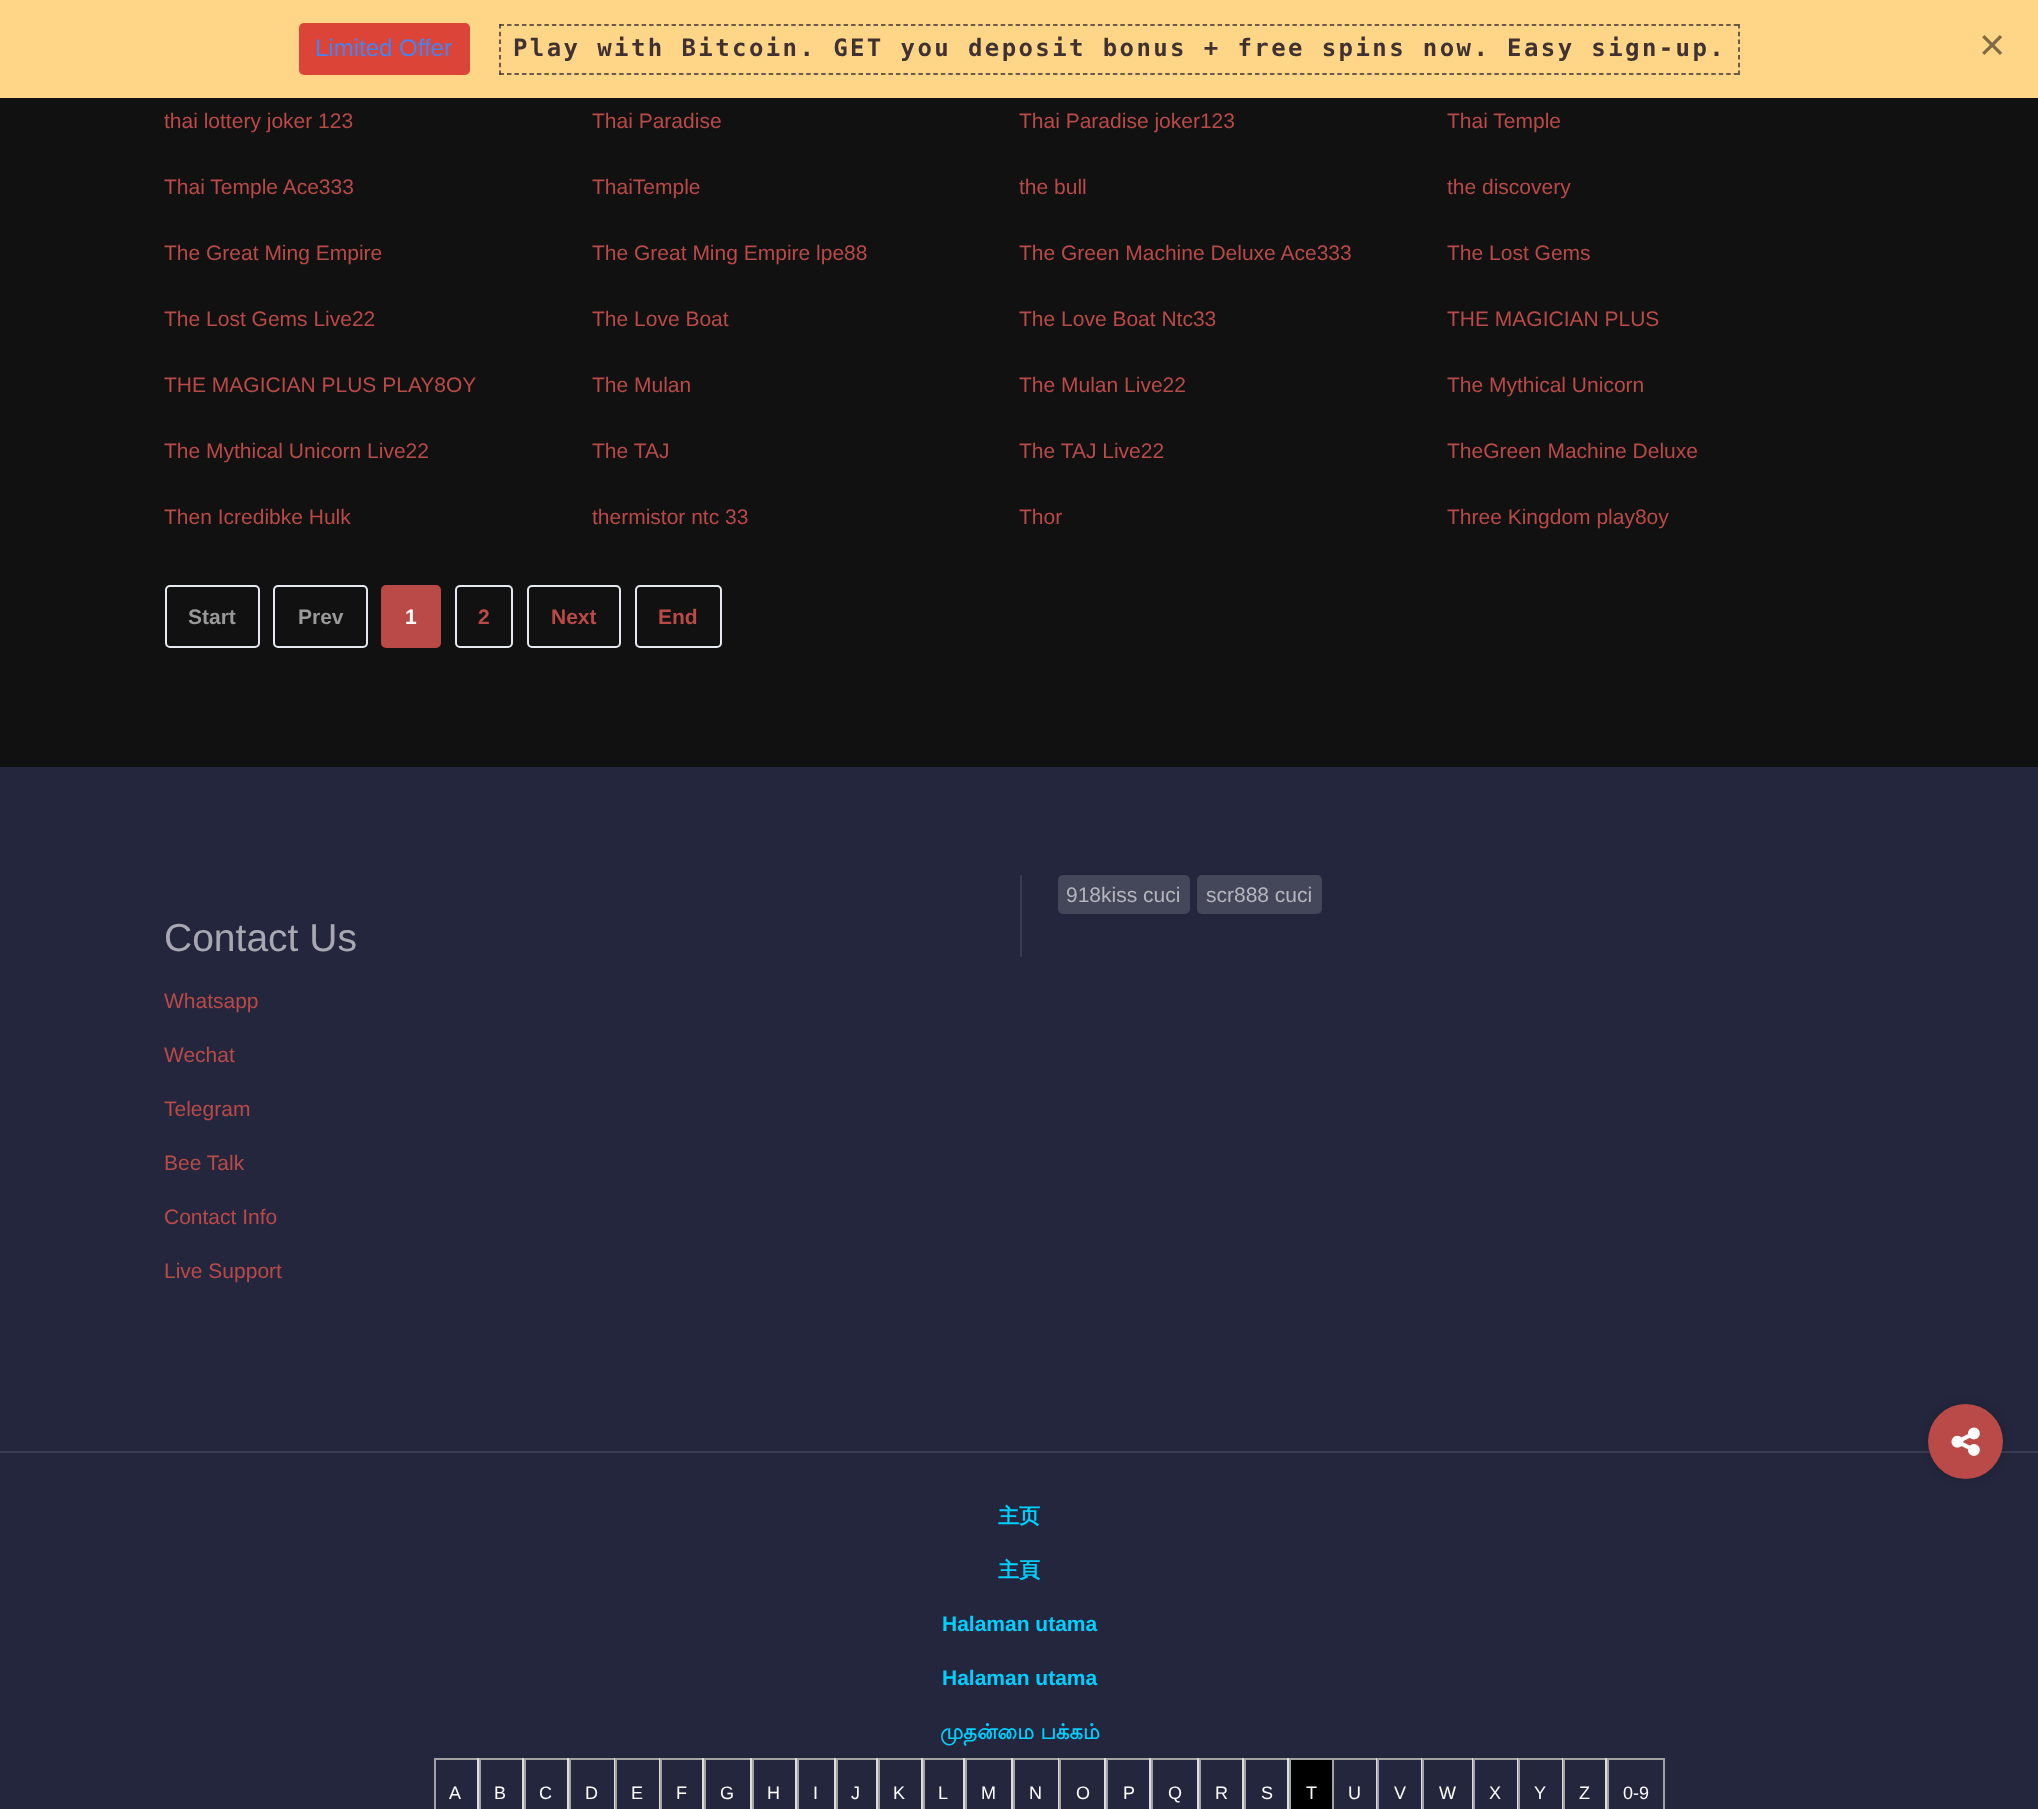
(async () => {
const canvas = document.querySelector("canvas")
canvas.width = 2038
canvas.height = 1809
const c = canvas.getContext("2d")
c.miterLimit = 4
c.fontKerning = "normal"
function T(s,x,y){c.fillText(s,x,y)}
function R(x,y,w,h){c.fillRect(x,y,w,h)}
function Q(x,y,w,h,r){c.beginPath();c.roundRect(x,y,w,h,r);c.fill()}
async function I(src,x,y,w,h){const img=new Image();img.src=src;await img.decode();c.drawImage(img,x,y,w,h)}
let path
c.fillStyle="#111"
R(0,0,2038,1809)
c.fillStyle="#ffd688"
R(0,0,2038,98)
c.fillStyle="#db4437"
Q(299,23,171,52,5)
c.font="24px Liberation Sans"
c.fillStyle="#4285f4"
T("Limited Offer",315,56)
path = new Path2D("M499.5 25h1240.5")
c.strokeStyle="#403232"
c.lineWidth=1.5
c.setLineDash([4.5,2.98])
c.stroke(path)
path = new Path2D("M1739 24v51")
c.setLineDash([4.5,3.25])
c.stroke(path)
path = new Path2D("M499.5 74h1240.5")
c.setLineDash([4.5,2.98])
c.stroke(path)
path = new Path2D("M500 24v51")
c.setLineDash([4.5,3.25])
c.stroke(path)
c.letterSpacing="2.4px"
c.font="bold 24px DejaVu Sans Mono"
c.fillStyle="#403232"
T("Play with Bitcoin. GET you deposit bonus + free spins now. Easy sign-up.",513,56)
c.letterSpacing="0px"
c.font="45px Liberation Sans"
c.fillStyle="#806b44"
T("×",1979,60)
c.font="21px Liberation Sans"
c.fillStyle="#b94a48"
T("thai lottery joker 123",164,128)
T("Thai Paradise",592,128)
T("Thai Paradise joker123",1019,128)
T("Thai Temple",1447,128)
T("Thai Temple Ace333",164,194)
T("ThaiTemple",592,194)
T("the bull",1019,194)
T("the discovery",1447,194)
T("The Great Ming Empire",164,260)
T("The Great Ming Empire lpe88",592,260)
T("The Green Machine Deluxe Ace333",1019,260)
T("The Lost Gems",1447,260)
T("The Lost Gems Live22",164,326)
T("The Love Boat",592,326)
T("The Love Boat Ntc33",1019,326)
T("THE MAGICIAN PLUS",1447,326)
T("THE MAGICIAN PLUS PLAY8OY",164,392)
T("The Mulan",592,392)
T("The Mulan Live22",1019,392)
T("The Mythical Unicorn",1447,392)
T("The Mythical Unicorn Live22",164,458)
T("The TAJ",592,458)
T("The TAJ Live22",1019,458)
T("TheGreen Machine Deluxe",1447,458)
T("Then Icredibke Hulk",164,524)
T("thermistor ntc 33",592,524)
T("Thor",1019,524)
T("Three Kingdom play8oy",1447,524)
c.beginPath()
c.roundRect(166,586,93,61,4)
c.strokeStyle="#e6eaf0"
c.lineWidth=2
c.setLineDash([])
c.stroke()
c.font="bold 21px Liberation Sans"
c.fillStyle="#999"
T("Start",188,624)
c.beginPath()
c.roundRect(274,586,93,61,4)
c.stroke()
T("Prev",298,624)
c.fillStyle="#b94a48"
c.beginPath()
c.roundRect(382,586,58,61,4)
c.fill()
c.strokeStyle="#b94a48"
c.stroke()
c.fillStyle="#fff"
T("1",405,624)
c.beginPath()
c.roundRect(456,586,56,61,4)
c.strokeStyle="#e6eaf0"
c.stroke()
c.fillStyle="#b94a48"
T("2",478,624)
c.beginPath()
c.roundRect(528,586,92,61,4)
c.stroke()
T("Next",551,624)
c.beginPath()
c.roundRect(636,586,85,61,4)
c.stroke()
T("End",658,624)
c.fillStyle="#23263d"
R(0,767,2038,1042)
c.fillStyle="#393c50"
R(1020,875,2,82)
c.fillStyle="#44475a"
Q(1058,875,132,39,5)
c.font="21px Liberation Sans"
c.fillStyle="#b4b5bd"
T("918kiss cuci",1066,902)
c.fillStyle="#44475a"
Q(1197,875,125,39,5)
c.fillStyle="#b4b5bd"
T("scr888 cuci",1206,902)
c.font="39px Liberation Sans"
c.fillStyle="#a7a8b1"
T("Contact Us",164,951)
c.font="21px Liberation Sans"
c.fillStyle="#b94a48"
T("Whatsapp",164,1008)
T("Wechat",164,1062)
T("Telegram",164,1116)
T("Bee Talk",164,1170)
T("Contact Info",164,1224)
T("Live Support",164,1278)
c.fillStyle="#393c50"
R(0,1451,2038,2)
c.font="bold 21px WenQuanYi Zen Hei"
c.fillStyle="#00d0ff"
T("主页",998,1523)
T("主頁",998,1577)
c.font="bold 21px Liberation Sans"
T("Halaman utama",942,1631)
T("Halaman utama",942,1685)
c.font="bold 21px Lohit Tamil"
T("முதன்மை பக்கம்",940,1739)
c.fillStyle="#a2a2a2"
R(434,1758,1173,2)
c.fillStyle="#ddd"
R(477,1758,2,51)
c.fillStyle="#a2a2a2"
R(434,1758,2,51)
c.font="18px Liberation Sans"
c.fillStyle="#fff"
T("A",449,1799)
c.fillStyle="#ddd"
R(522,1758,2,51)
c.fillStyle="#a2a2a2"
R(479,1758,2,51)
c.fillStyle="#fff"
T("B",494,1799)
c.fillStyle="#ddd"
R(567,1758,2,51)
c.fillStyle="#a2a2a2"
R(524,1758,2,51)
c.fillStyle="#fff"
T("C",539,1799)
c.fillStyle="#ddd"
R(614,1758,1,51)
c.fillStyle="#a2a2a2"
R(569,1758,2,51)
c.fillStyle="#fff"
T("D",585,1799)
c.fillStyle="#ddd"
R(659,1758,1,51)
c.fillStyle="#a2a2a2"
R(615,1758,2,51)
c.fillStyle="#fff"
T("E",631,1799)
c.fillStyle="#ddd"
R(702,1758,2,51)
c.fillStyle="#a2a2a2"
R(660,1758,2,51)
c.fillStyle="#fff"
T("F",676,1799)
c.fillStyle="#ddd"
R(750,1758,2,51)
c.fillStyle="#a2a2a2"
R(704,1758,2,51)
c.fillStyle="#fff"
T("G",720,1799)
c.fillStyle="#ddd"
R(795,1758,2,51)
c.fillStyle="#a2a2a2"
R(752,1758,2,51)
c.fillStyle="#fff"
T("H",767,1799)
c.fillStyle="#ddd"
R(834,1758,2,51)
c.fillStyle="#a2a2a2"
R(797,1758,2,51)
c.fillStyle="#fff"
T("I",813,1799)
c.fillStyle="#ddd"
R(876,1758,2,51)
c.fillStyle="#a2a2a2"
R(836,1758,2,51)
c.fillStyle="#fff"
T("J",851,1799)
c.fillStyle="#ddd"
R(921,1758,2,51)
c.fillStyle="#a2a2a2"
R(878,1758,2,51)
c.fillStyle="#fff"
T("K",893,1799)
c.fillStyle="#ddd"
R(963,1758,2,51)
c.fillStyle="#a2a2a2"
R(923,1758,2,51)
c.fillStyle="#fff"
T("L",938,1799)
c.fillStyle="#ddd"
R(1011,1758,2,51)
c.fillStyle="#a2a2a2"
R(965,1758,2,51)
c.fillStyle="#fff"
T("M",981,1799)
c.fillStyle="#ddd"
R(1058,1758,1,51)
c.fillStyle="#a2a2a2"
R(1013,1758,2,51)
c.fillStyle="#fff"
T("N",1029,1799)
c.fillStyle="#ddd"
R(1104,1758,2,51)
c.fillStyle="#a2a2a2"
R(1059,1758,2,51)
c.fillStyle="#fff"
T("O",1076,1799)
c.fillStyle="#ddd"
R(1149,1758,2,51)
c.fillStyle="#a2a2a2"
R(1106,1758,2,51)
c.fillStyle="#fff"
T("P",1123,1799)
c.fillStyle="#ddd"
R(1197,1758,2,51)
c.fillStyle="#a2a2a2"
R(1151,1758,2,51)
c.fillStyle="#fff"
T("Q",1168,1799)
c.fillStyle="#ddd"
R(1242,1758,2,51)
c.fillStyle="#a2a2a2"
R(1199,1758,2,51)
c.fillStyle="#fff"
T("R",1215,1799)
c.fillStyle="#ddd"
R(1287,1758,2,51)
c.fillStyle="#a2a2a2"
R(1244,1758,2,51)
c.fillStyle="#fff"
T("S",1261,1799)
c.fillStyle="#000"
R(1291,1760,41,49)
c.fillStyle="#a2a2a2"
R(1289,1758,2,51)
c.fillStyle="#fff"
T("T",1306,1799)
c.fillStyle="#ddd"
R(1376,1758,1,51)
c.fillStyle="#a2a2a2"
R(1332,1758,2,51)
c.fillStyle="#fff"
T("U",1348,1799)
c.fillStyle="#ddd"
R(1421,1758,1,51)
c.fillStyle="#a2a2a2"
R(1377,1758,2,51)
c.fillStyle="#fff"
T("V",1394,1799)
c.fillStyle="#ddd"
R(1472,1758,1,51)
c.fillStyle="#a2a2a2"
R(1422,1758,2,51)
c.fillStyle="#fff"
T("W",1439,1799)
c.fillStyle="#ddd"
R(1517,1758,1,51)
c.fillStyle="#a2a2a2"
R(1473,1758,2,51)
c.fillStyle="#fff"
T("X",1489,1799)
c.fillStyle="#ddd"
R(1562,1758,1,51)
c.fillStyle="#a2a2a2"
R(1518,1758,2,51)
c.fillStyle="#fff"
T("Y",1534,1799)
c.fillStyle="#ddd"
R(1605,1758,2,51)
c.fillStyle="#a2a2a2"
R(1563,1758,2,51)
c.fillStyle="#fff"
T("Z",1579,1799)
c.strokeStyle="#a2a2a2"
c.strokeRect(1608,1759,56,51)
T("0-9",1623,1799)
c.fillStyle="#00000026"
c.filter="blur(5px)"
c.beginPath()
c.roundRect(1928,1404,75,75,37.5)
c.fill()
c.filter="none"
c.fillStyle="#b94a48"
c.beginPath()
c.arc(1965.5,1441.5,37.5,0,7)
c.fill()
await I("1.png",1951,1427,29,29)
})()
